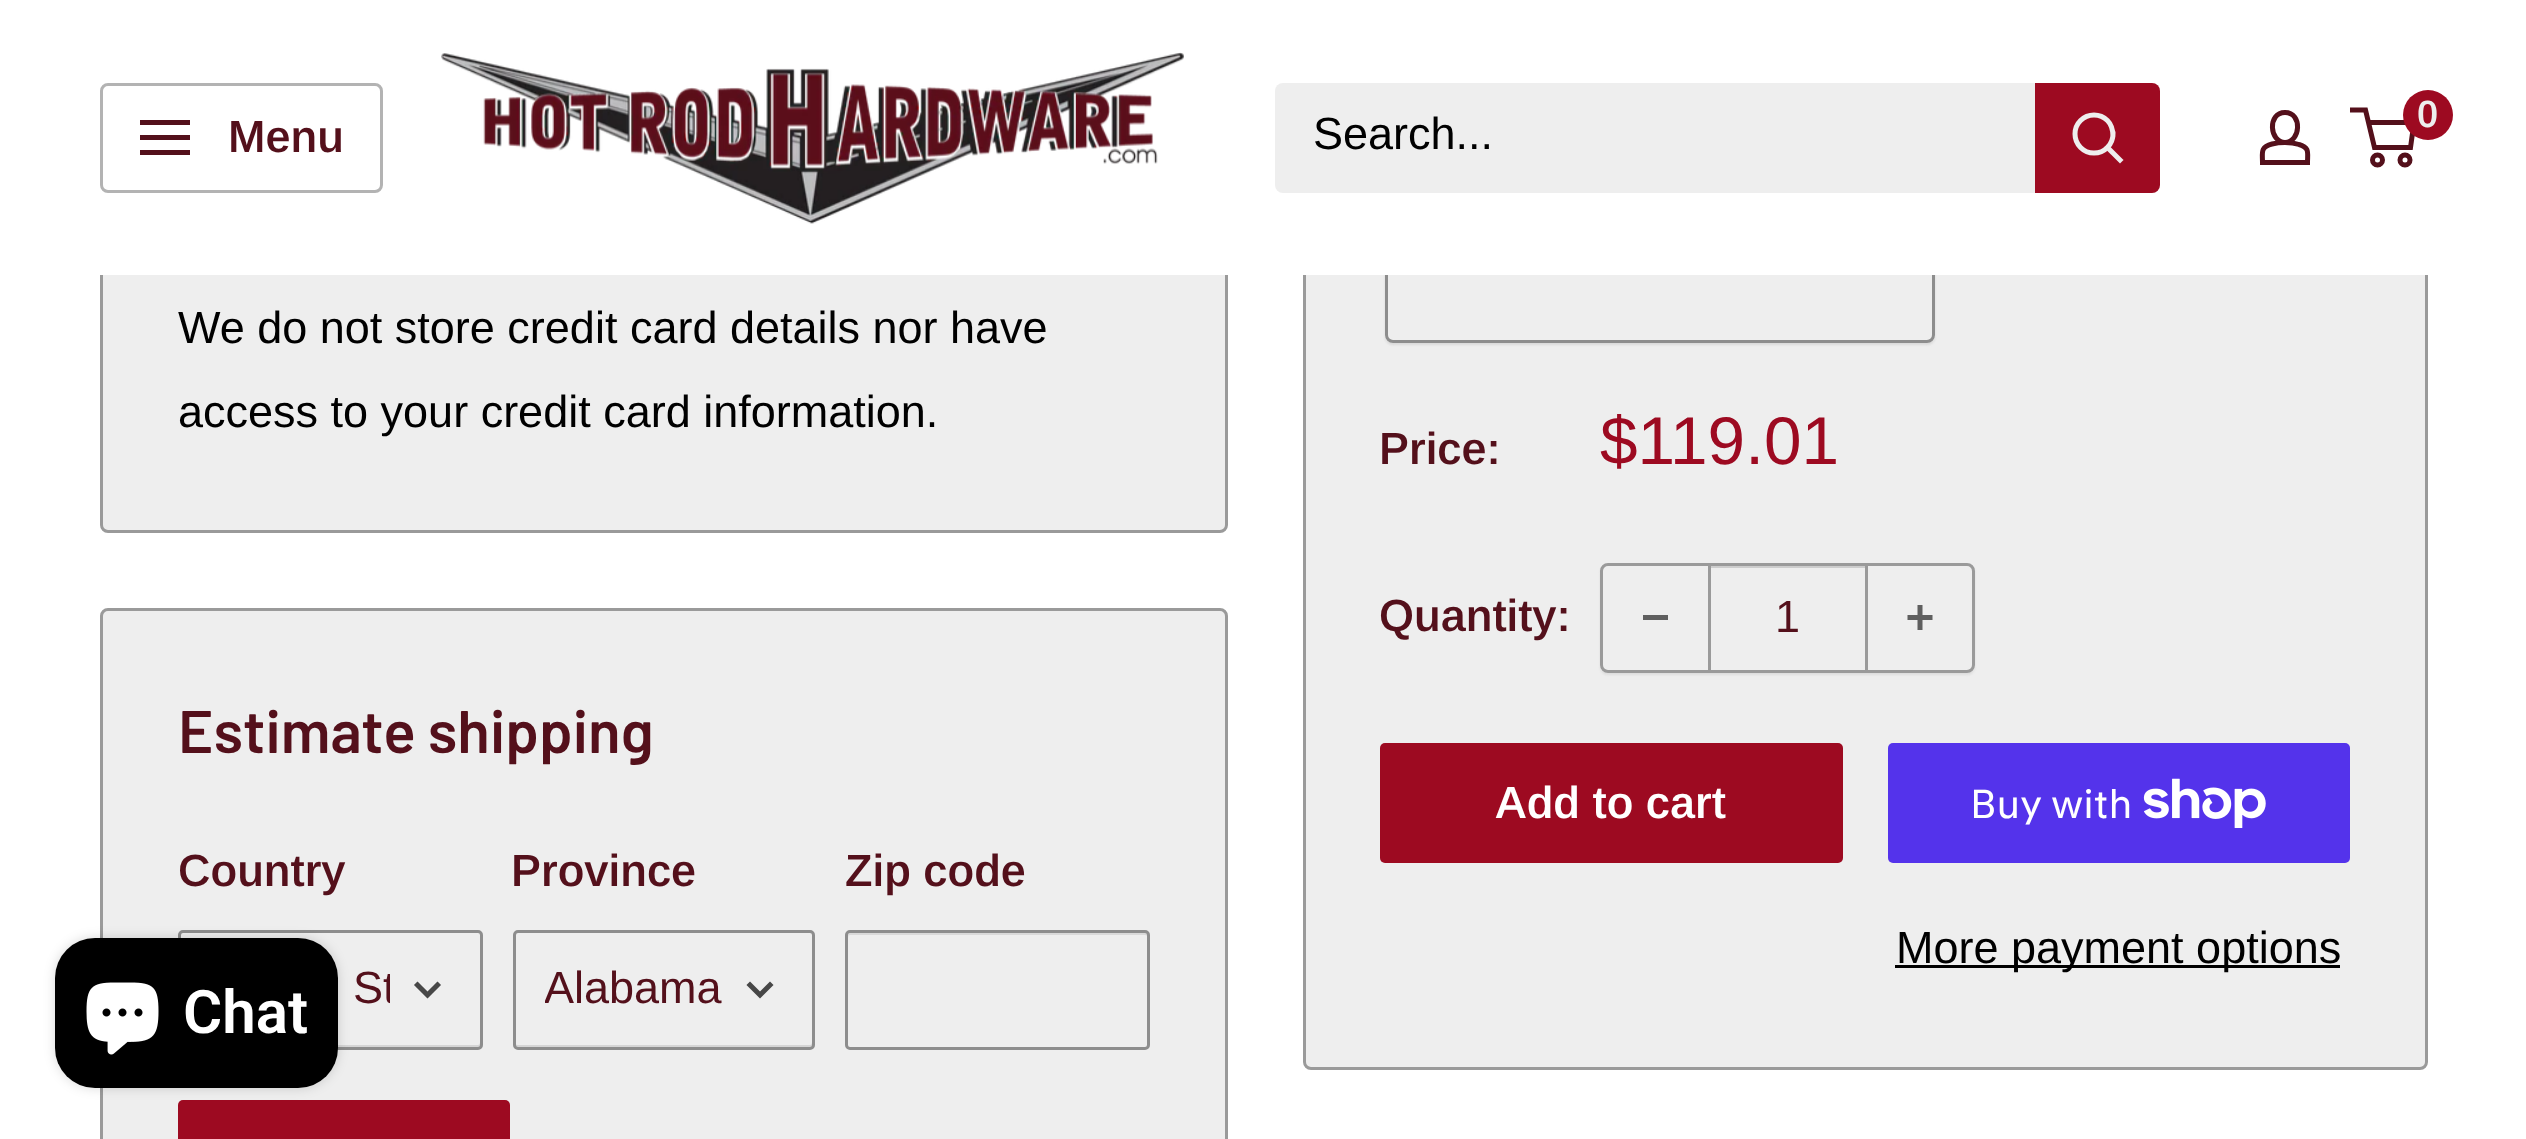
(async () => {
const canvas = document.querySelector("canvas")
canvas.width = 2526
canvas.height = 1139
const c = canvas.getContext("2d")
c.miterLimit = 4
c.fontKerning = "normal"
function T(s,x,y){c.fillText(s,x,y)}
function R(x,y,w,h){c.fillRect(x,y,w,h)}
function Q(x,y,w,h,r){c.beginPath();c.roundRect(x,y,w,h,r);c.fill()}
async function I(src,x,y,w,h){const img=new Image();img.src=src;await img.decode();c.drawImage(img,x,y,w,h)}
let path
c.fillStyle="#fff"
R(0,0,2526,1139)
c.fillStyle="#eee"
c.beginPath()
c.roundRect(101.5,-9.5,1125,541,6.5)
c.fill()
c.strokeStyle="#9a9a9a"
c.lineWidth=3
c.stroke()
c.beginPath()
c.roundRect(1304.5,-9.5,1122,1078,6.5)
c.fill()
c.stroke()
c.save()
path = new Path2D("M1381 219h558v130h-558zm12 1h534c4.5 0 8 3.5 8 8v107c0 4.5-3.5 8-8 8h-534c-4.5 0-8-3.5-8-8v-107c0-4.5 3.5-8 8-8z")
c.clip(path,"evenodd")
c.fillStyle="#9a9a9a40"
c.filter="blur(1px)"
c.beginPath()
c.roundRect(1385,223,550,122,8)
c.fill()
c.filter="none"
c.restore()
c.beginPath()
c.roundRect(1386.5,221.5,547,120,6.5)
c.strokeStyle="#8d8d8d"
c.stroke()
c.fillStyle="#fff"
R(100,0,2328,275)
c.beginPath()
c.roundRect(101.5,84.5,280,107,6.5)
c.strokeStyle="#b3b3b3"
c.stroke()
c.fillStyle="#54101b"
path = new Path2D("M140 150h50v5h-50zm0-30h50v5h-50zm0 15h50v5h-50z")
c.fill(path,"evenodd")
c.font="600 45px Arimo"
T("Menu",228,152)
await I("1.png",441,52,743,172)
c.fillStyle="#eee"
Q(1275,83,885,110,8)
c.font="45px Arimo"
c.fillStyle="#000"
T("Search...",1313,149)
c.fillStyle="#9d0a21"
c.beginPath()
c.roundRect(2035,83,125,110,[0,8,8,0])
c.fill()
path = new Path2D("M2120 160l-12.5-12.5")
c.strokeStyle="#eee"
c.lineWidth=5
c.lineCap="square"
c.stroke(path)
c.beginPath()
c.arc(2094,134,19,0,7)
c.stroke()
path = new Path2D("M2285 142.5c4.5 0 9.5 .5 14 2c11 3 8.5 8.5 8.5 18h-45c0-10-2.5-15.5 9.5-18.5c4-1 8.5-1.5 13-1.5zm0 0c-15.5 0-18-30 0-30c18 0 15.5 30 0 30z")
c.strokeStyle="#54101b"
c.lineCap="butt"
c.stroke(path)
c.beginPath()
c.arc(2377.5,160,5,0,7)
c.stroke()
c.beginPath()
c.arc(2405,160,5,0,7)
c.stroke()
path = new Path2D("M2368.5 122.5h45.5l-3.5 25h-36l-9-37.5h-15.5")
c.stroke(path)
c.beginPath()
c.arc(2428,115,25,0,7)
c.fill()
c.font="600 38px Arimo"
c.fillStyle="#eee"
T("0",2417,127)
c.font="45px Arimo"
c.fillStyle="#000"
T("We do not store credit card details nor have",178,343)
T("access to your credit card information.",178,427)
c.fillStyle="#eee"
c.beginPath()
c.roundRect(101.5,609.5,1125,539,6.5)
c.fill()
c.strokeStyle="#9a9a9a"
c.lineWidth=3
c.stroke()
c.font="600 60px Barlow"
c.fillStyle="#54101b"
T("Estimate shipping",178,753)
c.font="600 45px Arimo"
T("Country",178,886)
c.fillStyle="#d5d5d5"
path = new Path2D("M180 1042c0 2-1 6 2 6h296c3 0 2-4 2-6c0 2-1 3-2 3h-296c-1 0-2-1-2-3z")
c.fill(path)
c.beginPath()
c.roundRect(179.5,931.5,302,117,3.5)
c.strokeStyle="#8d8d8d"
c.stroke()
c.save()
c.beginPath()
c.rect(210,948,180,85)
c.clip()
c.font="45px Arimo"
c.fillStyle="#54101b"
T("St",353,1003)
c.restore()
path = new Path2D("M437.5 985l-10 10l-10-10")
c.strokeStyle="#474747"
c.lineWidth=5
c.lineCap="square"
c.stroke(path)
c.fillStyle="#54101b"
T("Province",511,886)
c.fillStyle="#d5d5d5"
path = new Path2D("M515 1042v4c0 1 1 2 3 2h292c2 0 3-1 3-2v-110c0-1 0-2-1-3v109c0 2-1 3-2 3h-292c-2 0-3-1-3-3z")
c.fill(path)
c.beginPath()
c.roundRect(514.5,931.5,299,117,3.5)
c.strokeStyle="#8d8d8d"
c.lineWidth=3
c.stroke()
c.save()
c.beginPath()
c.rect(545,948,178,85)
c.clip()
c.font="45px Arimo"
c.fillStyle="#54101b"
T("Alabama",544,1003)
c.restore()
path = new Path2D("M770 985l-10 10l-10-10")
c.strokeStyle="#474747"
c.lineWidth=5
c.stroke(path)
c.fillStyle="#54101b"
T("Zip code",845,886)
c.fillStyle="#d9d9d9"
path = new Path2D("M850 935h295c1 0 3 1 3 3c0-2 0-5-2-5h-296c-2 1-2 3-2 5c0-2 1-3 2-3z")
c.fill(path)
c.beginPath()
c.roundRect(846.5,931.5,302,117,3.5)
c.strokeStyle="#8d8d8d"
c.lineWidth=3
c.stroke()
c.fillStyle="#9d0a21"
Q(178,1100,332,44,5)
c.fillStyle="#54101b"
T("Price:",1379,464)
c.font="67.5px Arimo"
c.fillStyle="#9d0a21"
T("$119.01",1600,464)
c.font="600 45px Arimo"
c.fillStyle="#54101b"
T("Quantity:",1379,631)
c.save()
path = new Path2D("M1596 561h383v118h-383zm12 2h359c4.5 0 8 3.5 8 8v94c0 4.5-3.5 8-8 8h-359c-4.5 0-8-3.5-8-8v-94c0-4.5 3.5-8 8-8z")
c.clip(path,"evenodd")
c.fillStyle="#9a9a9a33"
c.filter="blur(1px)"
c.beginPath()
c.roundRect(1600,565,375,110,8)
c.fill()
c.filter="none"
c.restore()
c.beginPath()
c.roundRect(1601.5,564.5,372,107,6.5)
c.strokeStyle="#9a9a9a"
c.stroke()
c.fillStyle="#5f5f5f"
R(1643,615,25,5)
c.fillStyle="#9a9a9a66"
R(1710,566,155,2)
c.fillStyle="#9a9a9a"
R(1865,565,3,105)
R(1708,565,3,105)
c.font="45px Arimo"
c.fillStyle="#54101b"
T("1",1775,632)
await I("2.png",1907,605,26,25)
c.fillStyle="#9d0a21"
Q(1380,743,463,120,5)
c.font="600 45px Arimo"
c.fillStyle="#fff"
T("Add to cart",1495,818)
c.fillStyle="#5433eb"
Q(1888,743,462,120,5)
c.font="40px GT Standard"
c.fillStyle="#fff"
T("Buy with",1970,818)
await I("3.png",2143,778,123,50)
c.fillStyle="#000"
R(1895,965,445,3)
c.font="45px Arimo"
T("More payment options",1896,963)
c.fillStyle="#00000026"
c.filter="blur(6px)"
c.beginPath()
c.roundRect(55,938,283,150,40)
c.fill()
c.filter="none"
c.fillStyle="#000"
Q(55,938,283,150,40)
await I("4.png",86,982,73,73)
c.font="600 60px Roboto"
c.fillStyle="#fff"
T("Chat",183,1033)
})()
